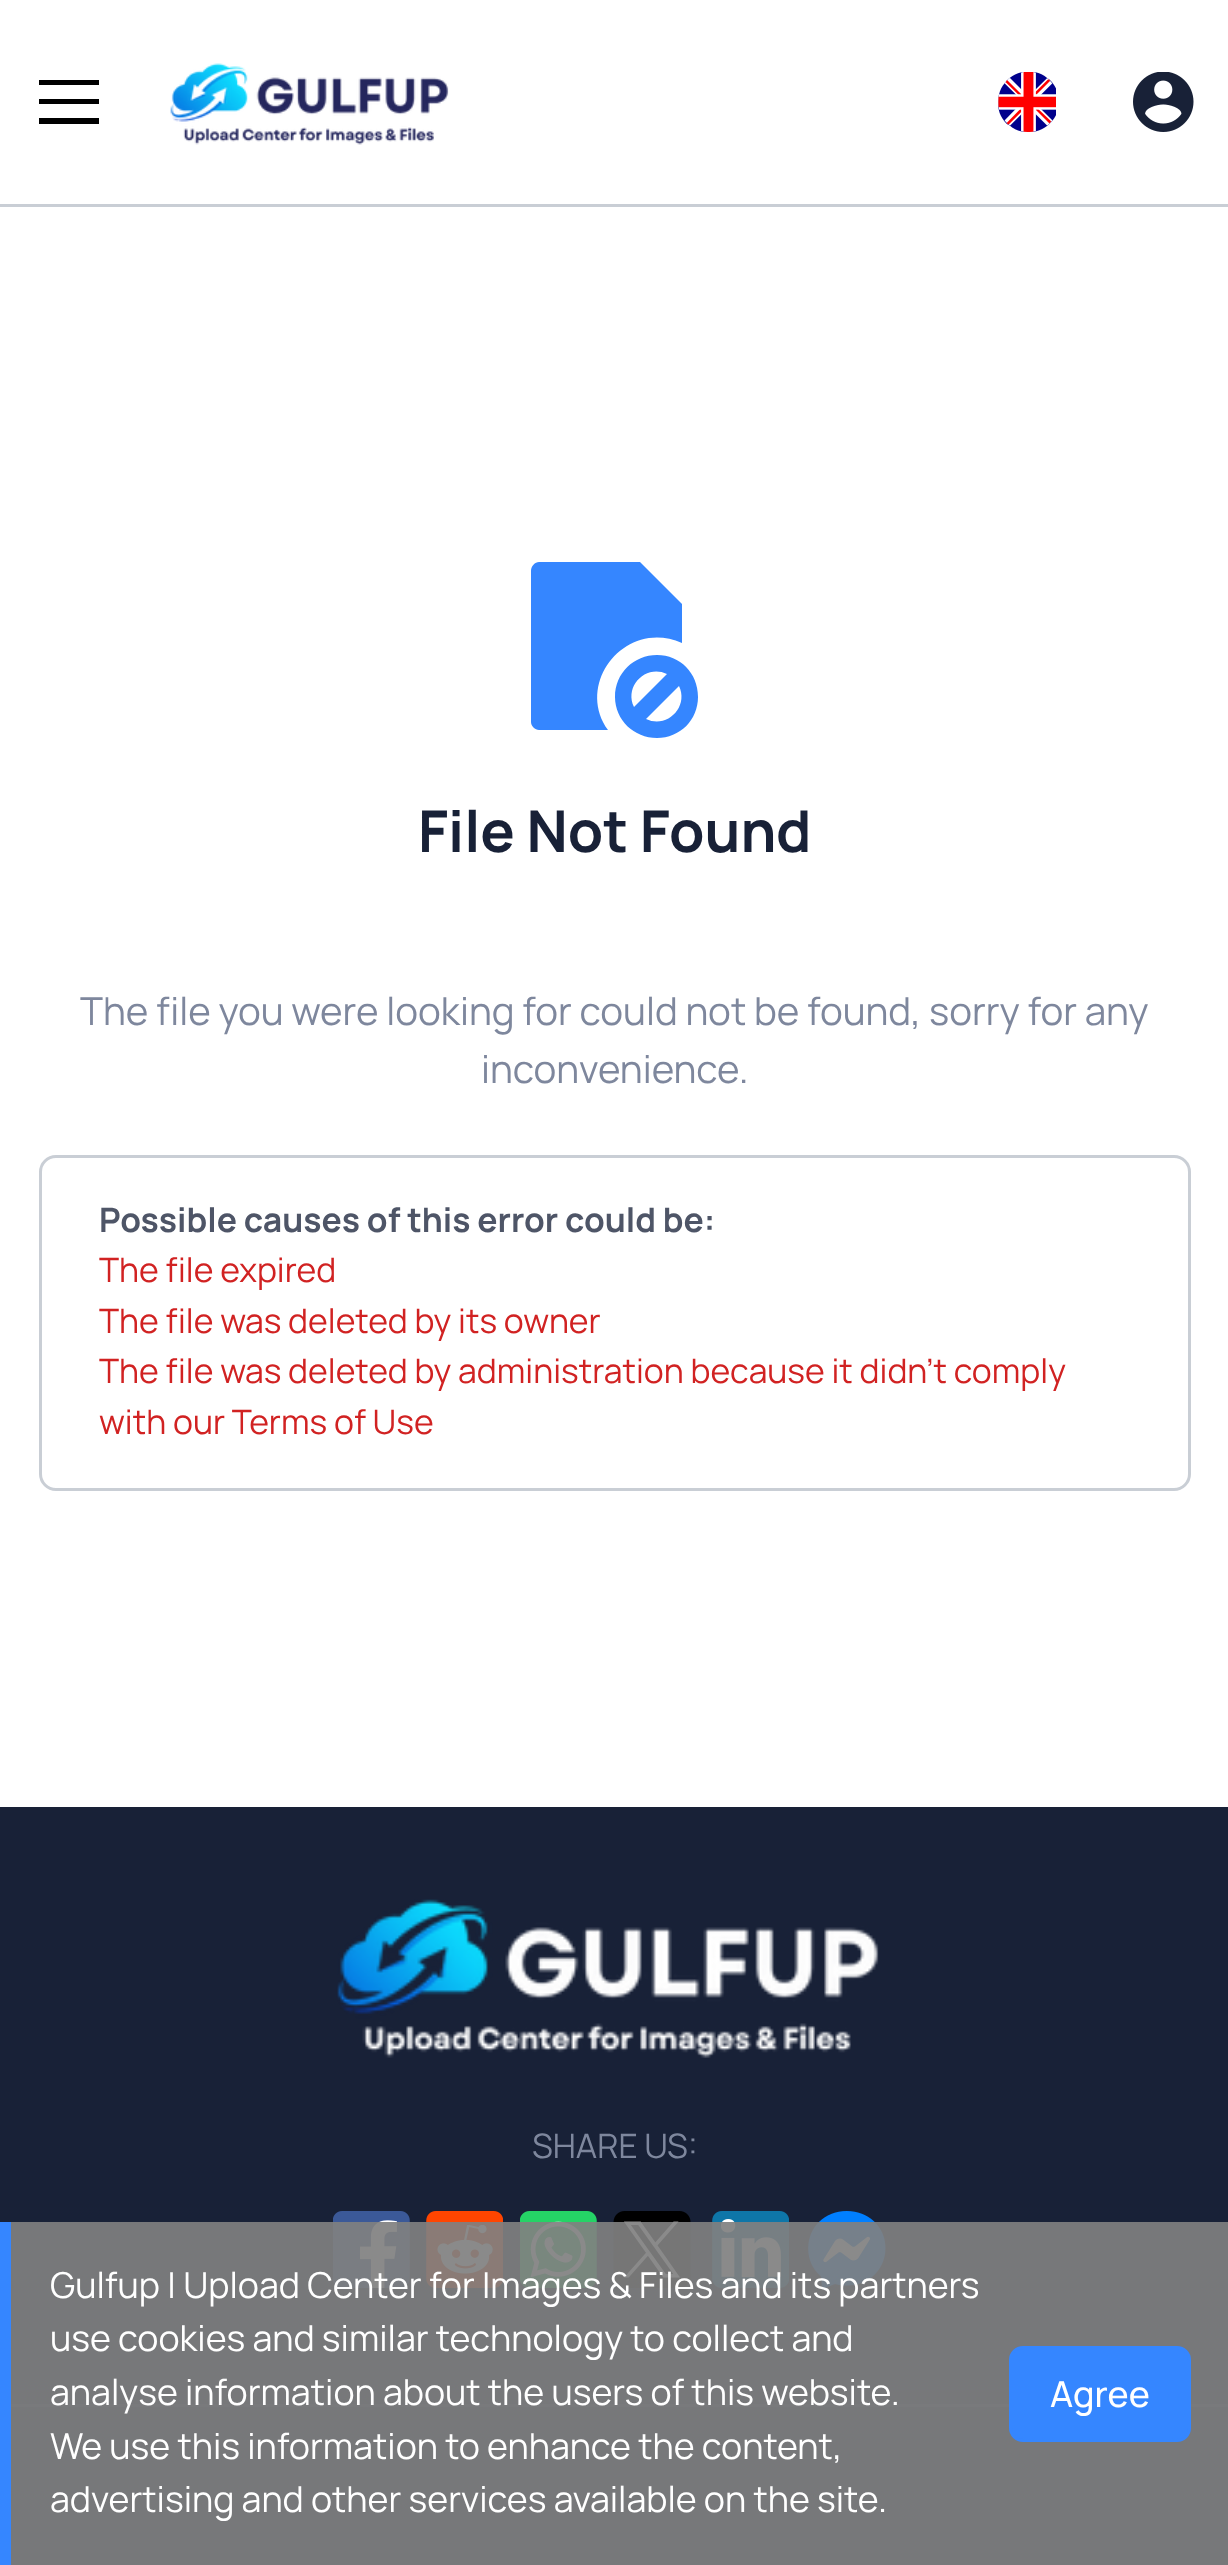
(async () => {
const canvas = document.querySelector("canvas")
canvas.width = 1228
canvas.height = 2565
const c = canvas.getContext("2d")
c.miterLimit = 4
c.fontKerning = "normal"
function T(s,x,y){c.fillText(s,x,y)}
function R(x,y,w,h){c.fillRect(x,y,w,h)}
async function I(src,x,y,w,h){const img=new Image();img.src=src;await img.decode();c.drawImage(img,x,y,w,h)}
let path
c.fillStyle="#fff"
R(0,0,1228,2565)
c.fillStyle="#c9ced5"
R(0,204,1228,3)
c.save()
c.beginPath()
c.rect(39,80,60,44)
c.clip()
c.fillStyle="#000"
path = new Path2D("M38 80h61v5h-61zm0 19h61v5h-61zm0 19h61v6h-61z")
c.fill(path)
c.restore()
await I("1.png",170,63,279,82)
await I("2.png",998,72,58,60)
await I("3.png",1133,72,61,60)
c.fillStyle="#3586ff"
path = new Path2D("M682 643c-55-25-108 39-74 87h-69c-4 0-8-4-8-8v-151c0-5 4-9 8-9h101l42 42zm-25 95c-23 0-42-18-42-41c0-24 19-42 42-42c23 0 41 18 41 42c0 23-18 41-41 41zm-11-19c21 10 43-12 33-33zm-12-12l33-33c-21-10-43 12-33 33z")
c.fill(path)
c.font="bold 57.5px Manrope"
c.fillStyle="#182137"
T("File Not Found",418,852)
c.font="38.5px Manrope"
c.fillStyle="#7e879d"
T("The file you were looking for could not be found, sorry for any",80,1025)
T("inconvenience.",481,1083)
c.beginPath()
c.roundRect(40.5,1156.5,1149,333,15.5)
c.strokeStyle="#c9ced5"
c.lineWidth=3
c.stroke()
c.font="bold 33.7px Manrope"
c.fillStyle="#4e5567"
T("Possible causes of this error could be:",99,1232)
c.font="33.7px Manrope"
c.fillStyle="#d12222"
T("The file expired",99,1282)
T("The file was deleted by its owner",99,1333)
T("The file was deleted by administration because it didn't comply",99,1383)
T("with our Terms of Use",99,1434)
c.fillStyle="#182137"
R(0,1807,1228,758)
await I("4.png",337,1899,542,159)
c.fillStyle="#7e879d"
T("SHARE US:",532,2158)
await I("5.png",333,2211,77,77)
await I("6.png",426,2211,77,77)
await I("7.png",520,2211,77,77)
await I("8.png",613,2211,78,77)
await I("9.png",712,2211,77,77)
await I("10.png",808,2211,78,77)
c.fillStyle="#2e374b"
R(11,2404,1217,3)
c.fillStyle="#808080eb"
R(11,2222,1217,343)
c.fillStyle="#3586ff"
R(0,2222,11,343)
c.font="35.75px Manrope"
c.fillStyle="#fff"
T("Gulfup | Upload Center for Images & Files and its partners",50,2298)
T("use cookies and similar technology to collect and",50,2351)
T("analyse information about the users of this website.",50,2405)
T("We use this information to enhance the content,",50,2459)
T("advertising and other services available on the site.",50,2512)
c.fillStyle="#3586ff"
c.beginPath()
c.roundRect(1010.5,2347.5,179,93,12.5)
c.fill()
c.strokeStyle="#3586ff"
c.stroke()
c.font="500 35.75px Manrope"
c.fillStyle="#fff"
T("Agree",1050,2407)
})()
